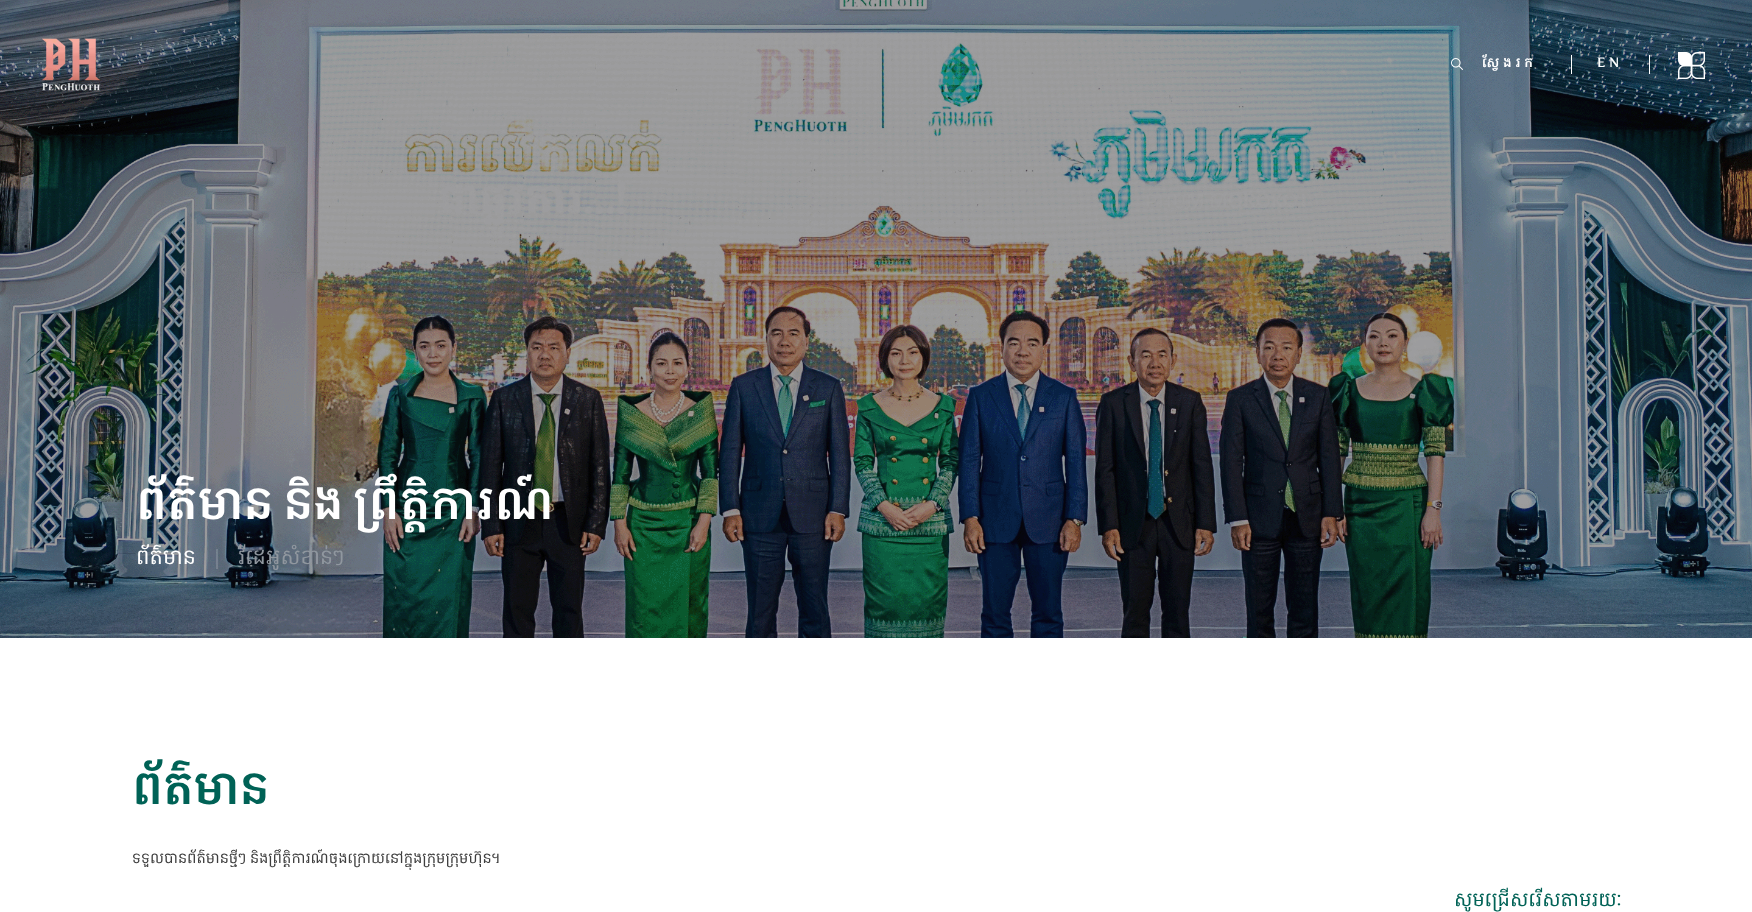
(async () => {
const canvas = document.querySelector("canvas")
canvas.width = 1752
canvas.height = 912
const c = canvas.getContext("2d")
c.miterLimit = 4
c.fontKerning = "normal"
function T(s,x,y){c.fillText(s,x,y)}
function R(x,y,w,h){c.fillRect(x,y,w,h)}
async function I(src,x,y,w,h){const img=new Image();img.src=src;await img.decode();c.drawImage(img,x,y,w,h)}
c.fillStyle="#fff"
R(0,0,1752,912)
await I("4.png",0,0,1752,638)
await I("1.png",41,38,59,53)
await I("2.png",1451,58,12,12)
c.save()
c.beginPath()
c.rect(1482,54,63,20)
c.clip()
c.letterSpacing="3.75px"
c.font="bold 12.75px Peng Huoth"
T("ស្វែងរក",1482,67)
c.restore()
R(1571,55,1,19)
c.letterSpacing="3.75px"
c.font="bold 12.75px Peng Huoth"
T("EN",1597,67)
R(1649,55,1,19)
await I("3.png",1678,52,27,27)
c.letterSpacing="0px"
c.font="bold 45px Peng Huoth"
T("ព័ត៌មាន និង ព្រឹត្តិការណ៍",136,519)
c.font="20px Peng Huoth"
T("ព័ត៌មាន",136,564)
c.fillStyle="#ffffff29"
R(216,549,2,20)
c.fillStyle="#90979f"
T("វីដេអូសំខាន់ៗ",238,564)
c.font="bold 45px Peng Huoth"
c.fillStyle="#006256"
T("ព័ត៌មាន",132,804)
c.font="14px Peng Huoth"
c.fillStyle="#3e3e3e"
T("ទទួលបានព័ត៌មានថ្មីៗ និងព្រឹត្តិការណ៍ចុងក្រោយនៅក្នុងក្រុមក្រុមហ៊ុន។",132,863)
c.font="18.5px Peng Huoth"
c.fillStyle="#006256"
T("សូមជ្រើសរើសតាមរយៈ",1454,906)
})()
